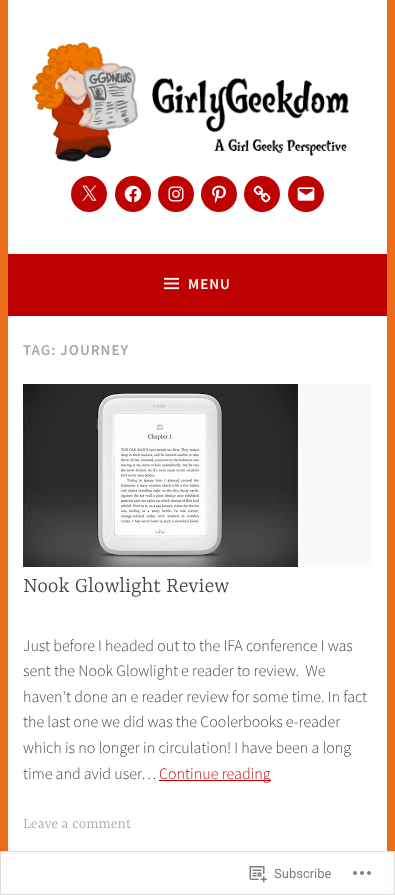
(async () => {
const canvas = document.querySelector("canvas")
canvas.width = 395
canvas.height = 895
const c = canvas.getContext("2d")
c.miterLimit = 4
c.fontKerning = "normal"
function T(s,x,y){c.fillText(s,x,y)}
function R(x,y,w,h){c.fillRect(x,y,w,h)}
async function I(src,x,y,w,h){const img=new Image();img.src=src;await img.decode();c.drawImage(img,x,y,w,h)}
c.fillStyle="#eb6d19"
R(0,0,395,895)
c.fillStyle="#fffcfa"
R(0,851,395,44)
c.fillStyle="#fff"
R(8,0,379,254)
await I("1.png",31,41,319,121)
c.fillStyle="#be0202"
c.beginPath()
c.arc(89,194,18,0,7)
c.fill()
await I("2.png",82,185,15,16)
c.beginPath()
c.arc(133,194,18,0,7)
c.fill()
await I("3.png",124,185,18,18)
c.beginPath()
c.arc(176,194,18,0,7)
c.fill()
await I("4.png",168,186,16,16)
c.beginPath()
c.arc(219,194,18,0,7)
c.fill()
await I("5.png",212,185,14,18)
c.beginPath()
c.arc(262,194,18,0,7)
c.fill()
await I("6.png",253,185,18,18)
c.beginPath()
c.arc(306,194,18,0,7)
c.fill()
await I("7.png",297,187,18,14)
R(8,254,379,60)
c.fillStyle="#b80202"
R(8,314,379,2)
await I("8.png",164,277,15,13)
c.letterSpacing="1px"
c.font="600 15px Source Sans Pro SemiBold"
c.fillStyle="#fff"
T("MENU",188,289)
R(8,316,379,579)
c.fillStyle="#a8a6a1"
T("TAG: JOURNEY",23,355)
c.fillStyle="#f8f9f8"
R(298,384,74,183)
await I("9.png",23,384,275,183)
c.letterSpacing="0px"
c.font="300 23px Yrsa"
c.fillStyle="#444340"
T("Nook Glowlight Review",23,592)
c.font="300 16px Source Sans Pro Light"
T("Just before I headed out to the IFA conference I was",23,651)
T("sent the Nook Glowlight e reader to review.  We",23,676)
T("haven't done an e reader review for some time. In fact",23,702)
T("the last one we did was the Coolerbooks e-reader",23,727)
T("which is no longer in circulation! I have been a long",23,753)
T("time and avid user…",23,779)
c.fillStyle="#be0202"
R(159,780,112,1)
T("Continue reading",159,779)
c.font="300 16px Yrsa"
c.fillStyle="#a8a6a1"
T("Leave a comment",23,828)
c.strokeStyle="#dcdcdefa"
c.strokeRect(.5,851.5,394,43)
await I("10.png",249,866,18,17)
c.font="13px Roboto"
c.fillStyle="#7b7f85"
T("Subscribe",274,878)
await I("11.png",353,871,18,4)
})()
